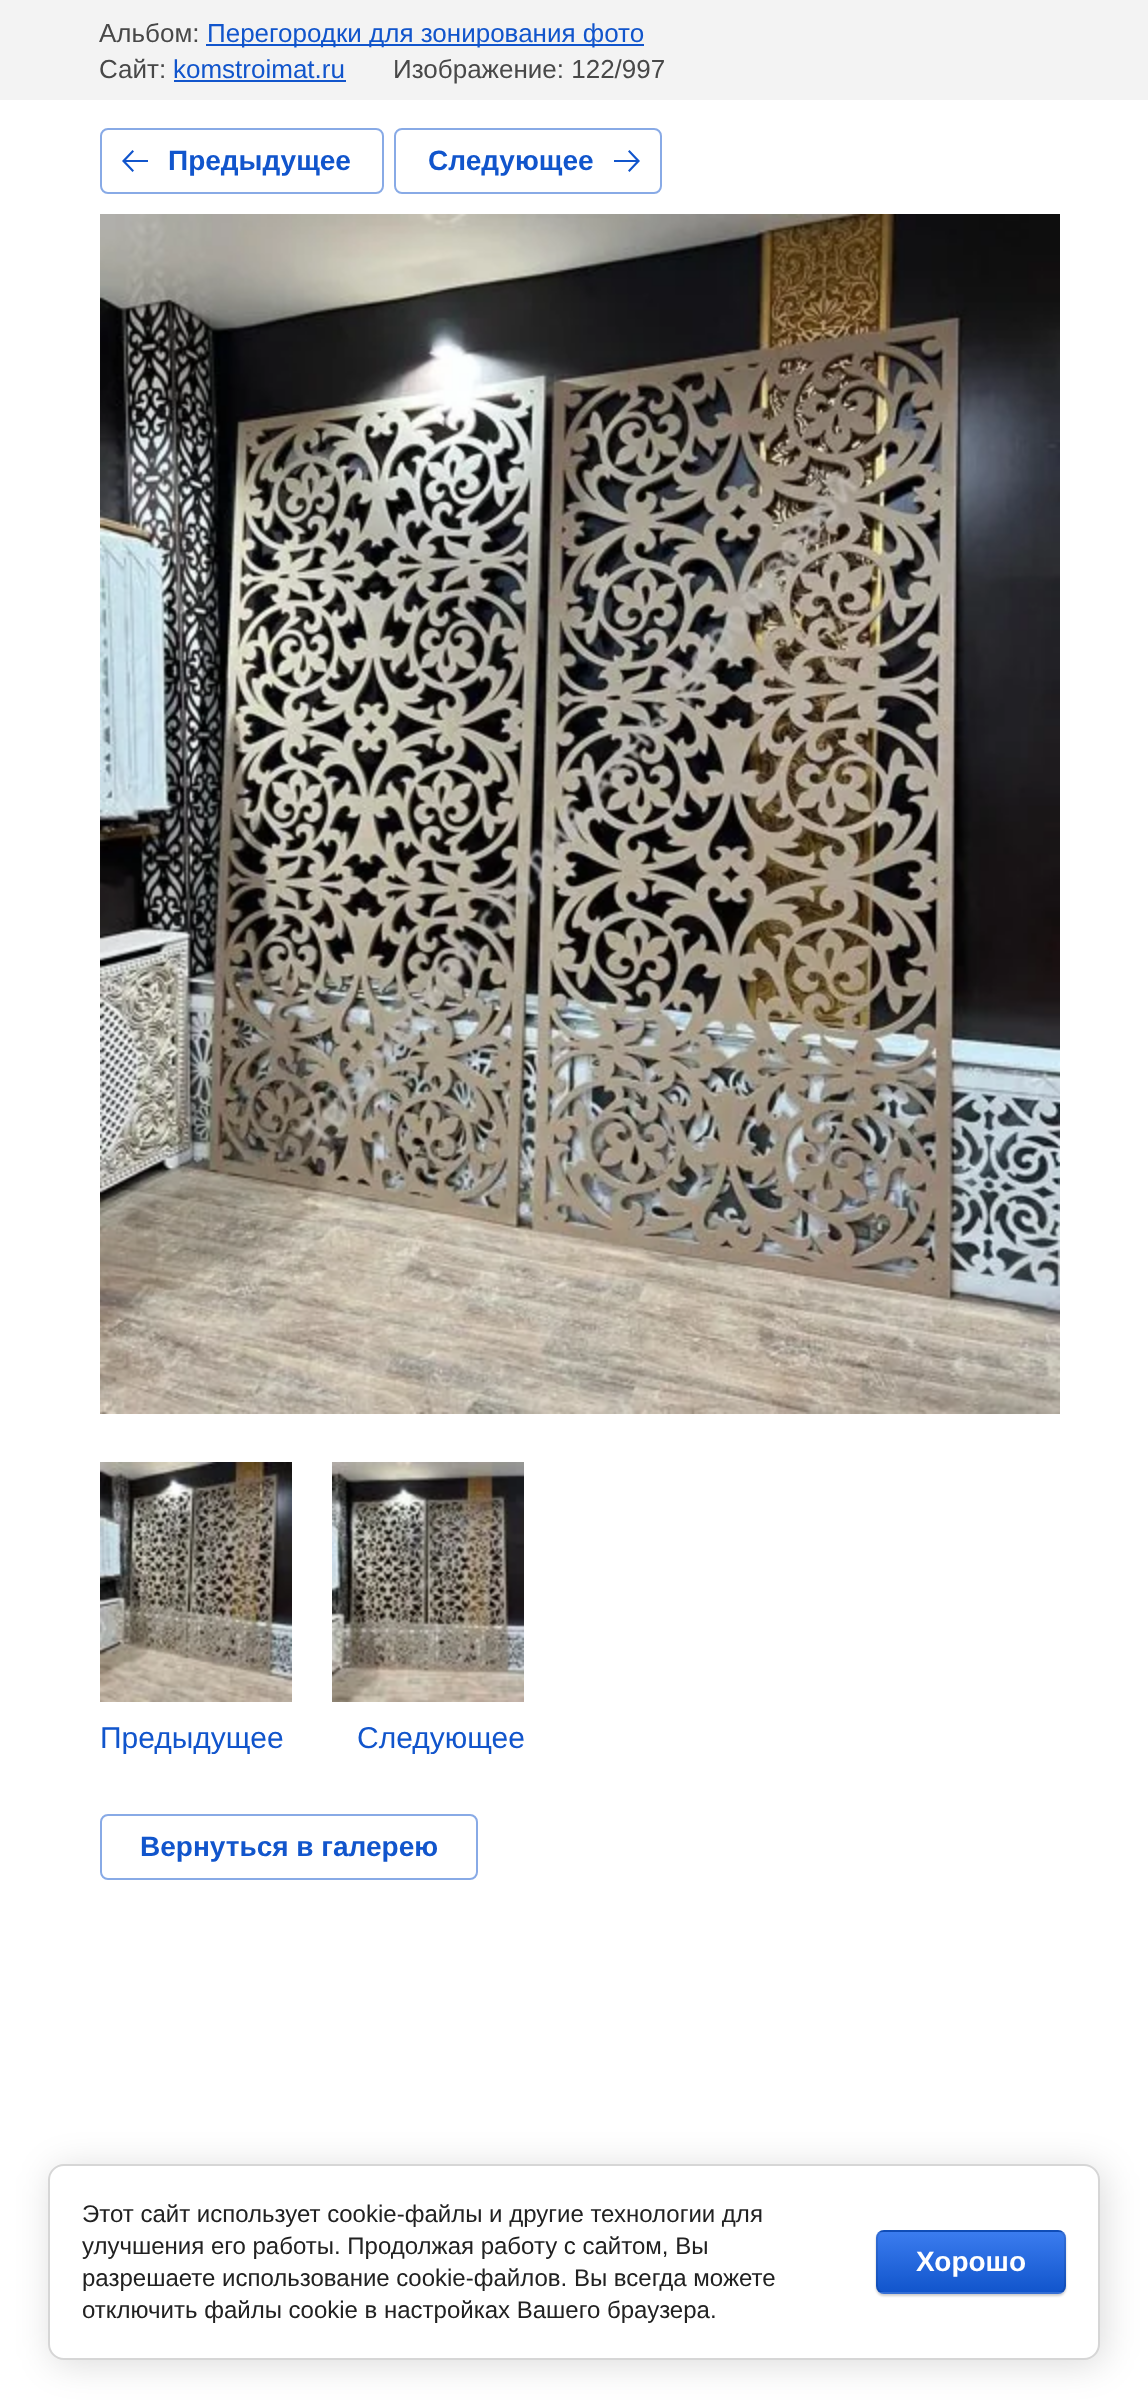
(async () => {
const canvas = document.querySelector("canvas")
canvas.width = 1148
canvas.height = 2407
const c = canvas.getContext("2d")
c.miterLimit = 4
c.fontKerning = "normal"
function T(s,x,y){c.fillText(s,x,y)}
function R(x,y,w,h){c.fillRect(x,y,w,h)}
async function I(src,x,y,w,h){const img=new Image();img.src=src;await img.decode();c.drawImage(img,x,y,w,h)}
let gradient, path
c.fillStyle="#fff"
R(0,0,1148,2407)
c.fillStyle="#f3f3f3"
R(0,0,1148,100)
c.font="26px Liberation Sans"
c.fillStyle="#484848"
T("Альбом:",99,42)
c.fillStyle="#15c"
R(206,44,438,2)
T("Перегородки для зонирования фото",207,42)
c.fillStyle="#484848"
T("Сайт:",99,78)
c.fillStyle="#15c"
T("komstroimat.ru",173,78)
R(174,80,172,2)
c.fillStyle="#484848"
T("Изображение: 122/997",393,78)
c.beginPath()
c.roundRect(101,129,282,64,7)
c.strokeStyle="#88aae6"
c.lineWidth=2
c.stroke()
c.fillStyle="#15c"
path = new Path2D("M134 151.5l-1.5-1.5l-10.5 11l10.5 11l1.5-1.5l-8-8.5h22v-2h-22z")
c.fill(path)
c.font="bold 28px Liberation Sans"
T("Предыдущее",168,170)
c.beginPath()
c.roundRect(395,129,266,64,7)
c.stroke()
T("Следующее",428,170)
path = new Path2D("M628 151.5l1.5-1.5l10.5 11l-10.5 11l-1.5-1.5l8-8.5h-22v-2h22z")
c.fill(path)
await I("1.png",100,214,960,1200)
await I("2.png",100,1462,192,240)
c.save()
c.beginPath()
c.rect(100,1462,192,292)
c.clip()
c.font="30px Liberation Sans"
T("Предыдущее",100,1748)
c.restore()
await I("3.png",332,1462,192,240)
c.save()
c.beginPath()
c.rect(332,1462,192,292)
c.clip()
c.font="30px Liberation Sans"
T("Следующее",357,1748)
c.restore()
c.beginPath()
c.roundRect(101,1815,376,64,7)
c.stroke()
T("Вернуться в галерею",140,1856)
c.fillStyle="#00000024"
c.filter="blur(18px)"
c.beginPath()
c.roundRect(52,2168,1052,196,16)
c.fill()
c.filter="none"
c.fillStyle="#fff"
c.beginPath()
c.roundRect(49,2165,1050,194,15)
c.fill()
c.strokeStyle="#d6d6d6"
c.stroke()
c.font="24px Liberation Sans"
c.fillStyle="#212121"
T("Этот сайт использует cookie-файлы и другие технологии для",82,2222)
T("улучшения его работы. Продолжая работу с сайтом, Вы",82,2254)
T("разрешаете использование cookie-файлов. Вы всегда можете",82,2286)
T("отключить файлы cookie в настройках Вашего браузера.",82,2318)
c.fillStyle="#00000033"
c.filter="blur(1px)"
c.beginPath()
c.roundRect(876,2232,190,64,8)
c.fill()
c.filter="none"
c.save()
c.beginPath()
c.roundRect(876,2230,190,64,8)
c.clip()
gradient = c.createLinearGradient(971,2172,971,2232)
gradient.addColorStop(0,"#3b7cef")
gradient.addColorStop(1,"#15c")
c.fillStyle = gradient
R(876,2230,190,2)
gradient = c.createLinearGradient(971,2232,971,2292)
gradient.addColorStop(0,"#3b7cef")
gradient.addColorStop(1,"#15c")
c.fillStyle = gradient
R(876,2232,190,60)
gradient = c.createLinearGradient(971,2292,971,2352)
gradient.addColorStop(0,"#3b7cef")
gradient.addColorStop(1,"#15c")
c.fillStyle = gradient
R(876,2292,190,2)
c.restore()
c.beginPath()
c.roundRect(877,2231,188,62,7)
c.strokeStyle="#0000001a"
c.stroke()
c.font="bold 28px Liberation Sans"
c.fillStyle="#fff"
T("Хорошо",916,2271)
})()
